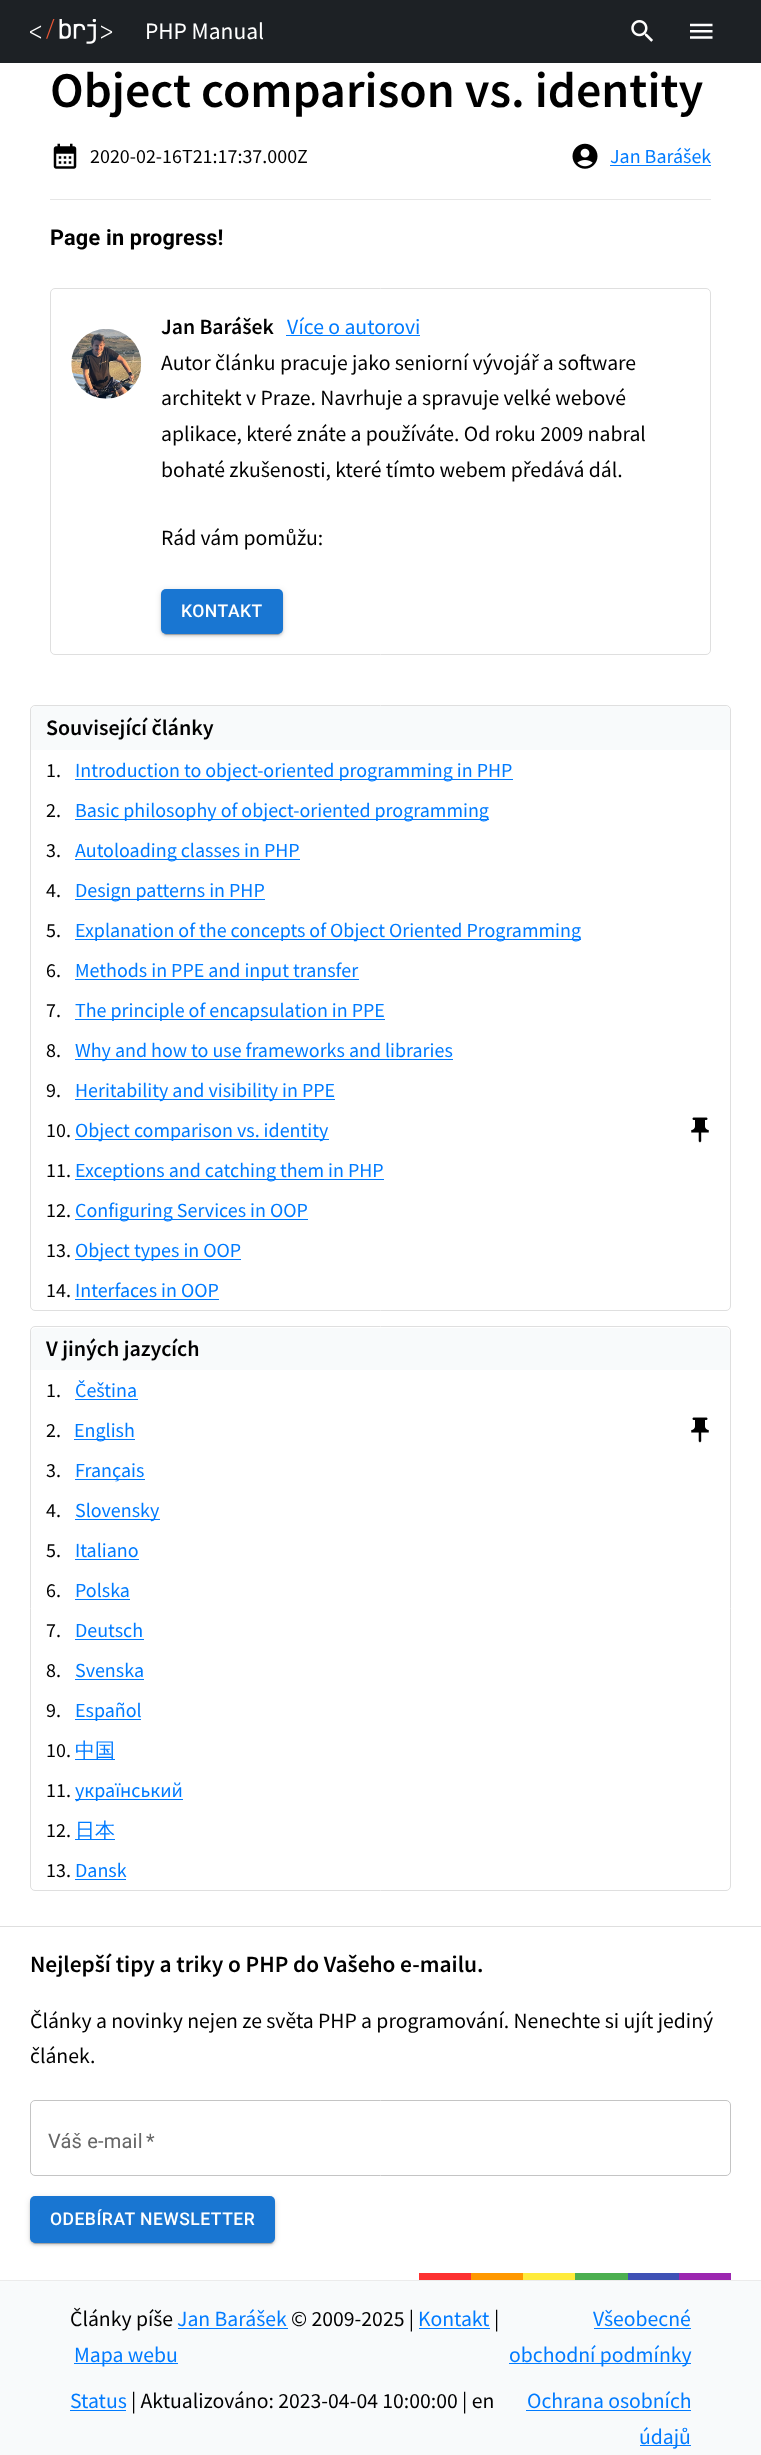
(async () => {
const canvas = document.querySelector("canvas")
canvas.width = 761
canvas.height = 2455
const c = canvas.getContext("2d")
c.miterLimit = 4
c.fontKerning = "normal"
function T(s,x,y){c.fillText(s,x,y)}
function R(x,y,w,h){c.fillRect(x,y,w,h)}
function Q(x,y,w,h,r){c.beginPath();c.roundRect(x,y,w,h,r);c.fill()}
async function I(src,x,y,w,h){const img=new Image();img.src=src;await img.decode();c.drawImage(img,x,y,w,h)}
c.fillStyle="#fff"
R(0,0,761,2455)
c.fillStyle="#1d2125"
R(0,0,761,63)
await I("1.png",30,19,83,25)
c.font="23.5px Source Sans Pro"
c.fillStyle="#fff"
T("PHP Manual",145,39)
await I("2.png",631,20,22,22)
await I("3.png",690,23,23,16)
c.font="600 50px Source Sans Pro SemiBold"
c.fillStyle="#000"
T("Object comparison vs. identity",50,107)
await I("4.png",53,143,24,26)
c.font="20px Source Sans Pro"
T("2020-02-16T21:17:37.000Z",90,163)
await I("5.png",572,143,26,26)
c.fillStyle="#007bff"
T("Jan Barášek",610,163)
R(610,165,101,1)
c.fillStyle="#e6e6e6"
R(50,199,661,1)
c.letterSpacing="0.2px"
c.font="bold 21.7px Roboto"
c.fillStyle="#000"
T("Page in progress!",50,245)
c.beginPath()
c.roundRect(50.5,288.5,660,366,4.5)
c.strokeStyle="#dfdfdf"
c.stroke()
await I("6.png",71,329,71,70)
c.letterSpacing="0px"
c.font="600 21.7px Source Sans Pro SemiBold"
T("Jan Barášek",161,334)
c.font="21.7px Source Sans Pro"
c.fillStyle="#007bff"
T("Více o autorovi",287,334)
R(286,335,134,1)
c.fillStyle="#000"
T("Autor článku pracuje jako seniorní vývojář a software",161,370)
T("architekt v Praze. Navrhuje a spravuje velké webové",161,405)
T("aplikace, které znáte a používáte. Od roku 2009 nabral",161,441)
T("bohaté zkušenosti, které tímto webem předává dál.",161,477)
T("Rád vám pomůžu:",161,545)
c.fillStyle="#0000001f"
c.filter="blur(3px)"
c.beginPath()
c.roundRect(161,590,122,45,5)
c.fill()
c.filter="none"
c.fillStyle="#00000024"
c.filter="blur(1px)"
c.beginPath()
c.roundRect(161,591,122,45,5)
c.fill()
c.filter="none"
c.fillStyle="#00000033"
c.filter="blur(0.5px)"
c.beginPath()
c.roundRect(164,595,116,40,2.5)
c.fill()
c.filter="none"
c.fillStyle="#1976d2"
Q(161,589,122,45,5)
c.letterSpacing="0.5px"
c.font="500 17.5px Roboto"
c.fillStyle="#fff"
T("KONTAKT",181,617)
c.beginPath()
c.roundRect(30.5,705.5,700,605,4.5)
c.stroke()
c.fillStyle="#f8fafb"
c.beginPath()
c.roundRect(31,706,699,44,[5,5,0,0])
c.fill()
c.letterSpacing="0px"
c.font="600 22px Source Sans Pro SemiBold"
c.fillStyle="#000"
T("Související články",46,735)
c.font="20px Source Sans Pro"
T("1.",46,777)
c.fillStyle="#007bff"
R(75,779,438,1)
T("Introduction to object-oriented programming in PHP",75,777)
c.fillStyle="#000"
T("2.",46,817)
c.fillStyle="#007bff"
R(75,819,414,1)
T("Basic philosophy of object-oriented programming",75,817)
c.fillStyle="#000"
T("3.",46,857)
c.fillStyle="#007bff"
R(75,859,225,1)
T("Autoloading classes in PHP",75,857)
c.fillStyle="#000"
T("4.",46,897)
c.fillStyle="#007bff"
R(75,899,190,1)
T("Design patterns in PHP",75,897)
c.fillStyle="#000"
T("5.",46,937)
c.fillStyle="#007bff"
R(75,939,506,1)
T("Explanation of the concepts of Object Oriented Programming",75,937)
c.fillStyle="#000"
T("6.",46,977)
c.fillStyle="#007bff"
R(75,979,284,1)
T("Methods in PPE and input transfer",75,977)
c.fillStyle="#000"
T("7.",46,1017)
c.fillStyle="#007bff"
R(75,1019,310,1)
T("The principle of encapsulation in PPE",75,1017)
c.fillStyle="#000"
T("8.",46,1057)
c.fillStyle="#007bff"
R(75,1059,378,1)
T("Why and how to use frameworks and libraries",75,1057)
c.fillStyle="#000"
T("9.",46,1097)
c.fillStyle="#007bff"
R(75,1099,260,1)
T("Heritability and visibility in PPE",75,1097)
c.fillStyle="#000"
T("10.",46,1137)
c.fillStyle="#007bff"
R(75,1139,254,1)
T("Object comparison vs. identity",75,1137)
await I("7.png",691,1117,18,26)
c.fillStyle="#000"
T("11.",46,1177)
c.fillStyle="#007bff"
R(75,1179,309,1)
T("Exceptions and catching them in PHP",75,1177)
c.fillStyle="#000"
T("12.",46,1217)
c.fillStyle="#007bff"
R(75,1219,233,1)
T("Configuring Services in OOP",75,1217)
c.fillStyle="#000"
T("13.",46,1257)
c.fillStyle="#007bff"
R(75,1259,166,1)
T("Object types in OOP",75,1257)
c.fillStyle="#000"
T("14.",46,1297)
c.fillStyle="#007bff"
T("Interfaces in OOP",75,1297)
R(75,1299,144,1)
c.beginPath()
c.roundRect(30.5,1326.5,700,564,4.5)
c.stroke()
c.fillStyle="#f8fafb"
c.beginPath()
c.roundRect(31,1328,699,42,[5,5,0,0])
c.fill()
c.font="600 22px Source Sans Pro SemiBold"
c.fillStyle="#000"
T("V jiných jazycích",46,1356)
c.font="20px Source Sans Pro"
T("1.",46,1397)
c.fillStyle="#007bff"
T("Čeština",75,1397)
R(75,1399,63,1)
c.fillStyle="#000"
T("2.",46,1437)
c.fillStyle="#007bff"
R(74,1439,61,1)
T("English",74,1437)
await I("7.png",691,1417,18,26)
c.fillStyle="#000"
T("3.",46,1477)
c.fillStyle="#007bff"
R(75,1479,70,1)
T("Français",75,1477)
c.fillStyle="#000"
T("4.",46,1517)
c.fillStyle="#007bff"
R(75,1519,85,1)
T("Slovensky",75,1517)
c.fillStyle="#000"
T("5.",46,1557)
c.fillStyle="#007bff"
T("Italiano",75,1557)
R(75,1559,64,1)
c.fillStyle="#000"
T("6.",46,1597)
c.fillStyle="#007bff"
T("Polska",75,1597)
R(75,1599,55,1)
c.fillStyle="#000"
T("7.",46,1637)
c.fillStyle="#007bff"
T("Deutsch",75,1637)
R(75,1639,69,1)
c.fillStyle="#000"
T("8.",46,1677)
c.fillStyle="#007bff"
T("Svenska",75,1677)
R(75,1679,69,1)
c.fillStyle="#000"
T("9.",46,1717)
c.fillStyle="#007bff"
R(75,1719,66,1)
T("Español",75,1717)
c.fillStyle="#000"
T("10.",46,1757)
c.fillStyle="#007bff"
R(75,1759,40,1)
c.font="500 20px WenQuanYi Zen Hei"
T("中国",75,1757)
c.font="20px Source Sans Pro"
c.fillStyle="#000"
T("11.",46,1797)
c.fillStyle="#007bff"
R(75,1799,108,1)
T("український",75,1797)
c.fillStyle="#000"
T("12.",46,1837)
c.fillStyle="#007bff"
R(75,1839,40,1)
c.font="500 20px WenQuanYi Zen Hei"
T("日本",75,1837)
c.font="20px Source Sans Pro"
c.fillStyle="#000"
T("13.",46,1877)
c.fillStyle="#007bff"
T("Dansk",75,1877)
R(75,1879,51,1)
c.fillStyle="#dfdfdf"
R(0,1926,761,1)
c.font="600 23.4px Source Sans Pro SemiBold"
c.fillStyle="#000"
T("Nejlepší tipy a triky o PHP do Vašeho e-mailu.",30,1972)
c.font="21.7px Source Sans Pro"
T("Články a novinky nejen ze světa PHP a programování. Nenechte si ujít jediný",30,2028)
T("článek.",30,2063)
c.beginPath()
c.roundRect(30.5,2100.5,700,75,4.5)
c.strokeStyle="#c4c4c4"
c.stroke()
c.letterSpacing="0.2px"
c.font="20px Roboto"
c.fillStyle="#666"
T("Váš e-mail",48,2148)
T("*",146,2148)
c.fillStyle="#0000001f"
c.filter="blur(3px)"
c.beginPath()
c.roundRect(30,2198,245,46,5)
c.fill()
c.filter="none"
c.fillStyle="#00000024"
c.filter="blur(1px)"
c.beginPath()
c.roundRect(30,2199,245,46,5)
c.fill()
c.filter="none"
c.fillStyle="#00000033"
c.filter="blur(0.5px)"
c.beginPath()
c.roundRect(33,2203,240,41,2.5)
c.fill()
c.filter="none"
c.fillStyle="#1976d2"
Q(30,2196,245,47,5)
c.letterSpacing="0.5px"
c.font="500 17.5px Roboto"
c.fillStyle="#fff"
T("ODEBÍRAT NEWSLETTER",50,2225)
c.fillStyle="#fd3131"
R(419,2273,52,7)
c.fillStyle="#ff9800"
R(471,2273,52,7)
c.fillStyle="#ffeb3b"
R(523,2273,52,7)
c.fillStyle="#4caf50"
R(575,2273,53,7)
c.fillStyle="#3f51b5"
R(628,2273,51,7)
c.fillStyle="#9c27b0"
R(679,2273,52,7)
c.fillStyle="#f8fafb"
R(0,2281,761,174)
c.fillStyle="#ebebeb"
R(0,2280,761,1)
c.letterSpacing="0px"
c.font="21.7px Source Sans Pro"
c.fillStyle="#000"
T("Články píše",70,2326)
c.fillStyle="#007bff"
T("Jan Barášek",177,2326)
R(178,2328,110,1)
c.fillStyle="#000"
T("© 2009-2025 |",291,2326)
c.fillStyle="#007bff"
T("Kontakt",418,2326)
R(419,2328,71,1)
c.fillStyle="#000"
T("|",494,2326)
c.fillStyle="#007bff"
R(74,2363,104,1)
T("Mapa webu",74,2362)
T("Status",70,2408)
R(70,2410,56,1)
c.fillStyle="#000"
T("| Aktualizováno: 2023-04-04 10:00:00 | en",131,2408)
c.fillStyle="#007bff"
T("Všeobecné",593,2326)
R(594,2328,97,1)
R(509,2363,182,1)
T("obchodní podmínky",509,2362)
T("Ochrana osobních",527,2408)
R(526,2410,165,1)
R(640,2445,51,1)
T("údajů",639,2444)
})()
